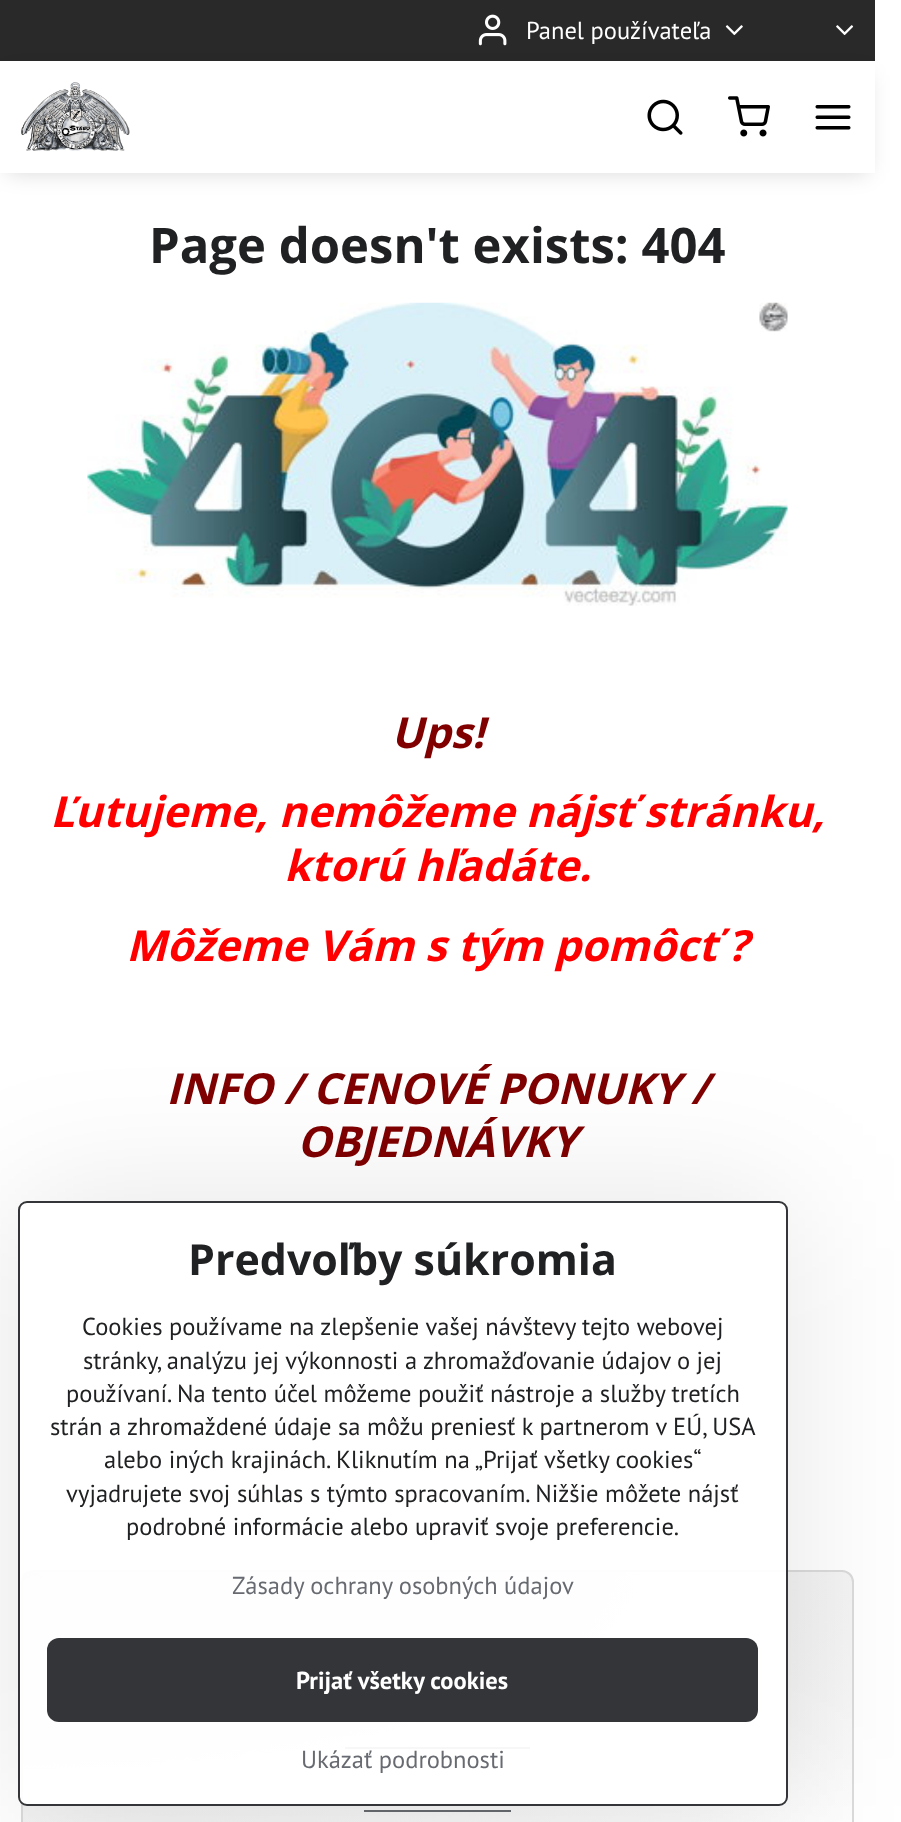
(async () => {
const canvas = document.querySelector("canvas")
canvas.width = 901
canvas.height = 1822
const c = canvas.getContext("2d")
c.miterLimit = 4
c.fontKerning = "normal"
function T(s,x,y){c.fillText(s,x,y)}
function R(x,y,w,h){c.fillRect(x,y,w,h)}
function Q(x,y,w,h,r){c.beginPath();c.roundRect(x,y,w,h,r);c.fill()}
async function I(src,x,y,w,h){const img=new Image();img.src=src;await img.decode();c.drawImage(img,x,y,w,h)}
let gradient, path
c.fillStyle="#fff"
R(0,0,901,1822)
c.fillStyle="#292929"
R(0,0,875,61)
await I("1.png",478,14,29,32)
c.font="24.5px PT Sans"
c.fillStyle="#fff"
T("Panel používateľa",526,39)
await I("2.png",725,25,18,11)
await I("3.png",836,25,18,11)
c.save()
path = new Path2D("M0 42h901v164h-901zm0 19h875v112h-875z")
c.clip(path,"evenodd")
c.fillStyle="#00001426"
c.filter="blur(10.5px)"
c.beginPath()
c.rect(7,75,861,98)
c.fill()
c.filter="none"
c.restore()
await I("4.png",21,82,109,69)
await I("5.png",647,99,36,36)
await I("6.png",728,96,42,41)
await I("7.png",815,105,36,25)
c.font="bold 49px Open Sans"
c.fillStyle="#202123"
T("Page doesn't exists: 404",149,263)
await I("8.png",87,302,701,304)
c.font="italic bold 42.9px Open Sans"
c.fillStyle="#800000"
T("Ups!",391,748)
c.fillStyle="#f00"
T("Ľutujeme, nemôžeme nájsť stránku,",50,827)
T("ktorú hľadáte.",284,881)
T("Môžeme Vám s tým pomôcť ?",126,961)
c.fillStyle="#800000"
T("INFO / CENOVÉ PONUKY /",166,1104)
T("OBJEDNÁVKY",297,1157)
c.save()
c.beginPath()
c.roundRect(21,1570,833,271,12)
c.clip()
gradient = c.createRadialGradient(23,4865.32,0,23,4865.32,1173)
gradient.addColorStop(0,"#dbdbdb")
gradient.addColorStop(1,"#fff")
c.fillStyle = gradient
c.beginPath()
c.rect(23,1572,829,250)
c.save()
c.clip()
c.scale(1,379 / 1173)
c.fillRect(0,0,901,5640)
c.restore()
c.restore()
c.beginPath()
c.roundRect(22,1571,831,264,11)
c.strokeStyle="#dbdbdb"
c.lineWidth=2
c.stroke()
c.fillStyle="#676a70"
R(345,1747,185,2)
R(364,1810,147,2)
c.save()
path = new Path2D("M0 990h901v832h-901zm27 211h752c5 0 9 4 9 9v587c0 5-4 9-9 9h-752c-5 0-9-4-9-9v-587c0-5 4-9 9-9z")
c.clip(path,"evenodd")
c.fillStyle="#0000001a"
c.filter="blur(70px)"
c.beginPath()
c.roundRect(18,1201,770,605,9)
c.fill()
c.filter="none"
c.restore()
c.fillStyle="#fffffff2"
c.beginPath()
c.roundRect(19,1202,768,603,8)
c.fill()
c.strokeStyle="#333538"
c.stroke()
c.font="bold 42.9px Open Sans"
c.fillStyle="#202123"
T("Predvoľby súkromia",188,1275)
c.font="24.5px PT Sans"
T("Cookies používame na zlepšenie vašej návštevy tejto webovej",82,1335)
T("stránky, analýzu jej výkonnosti a zhromažďovanie údajov o jej",83,1369)
T("používaní. Na tento účel môžeme použiť nástroje a služby tretích",66,1402)
T("strán a zhromaždené údaje sa môžu preniesť k partnerom v EÚ, USA",50,1435)
T("alebo iných krajinách. Kliknutím na „Prijať všetky cookies“",104,1468)
T("vyjadrujete svoj súhlas s týmto spracovaním. Nižšie môžete nájsť",66,1502)
T("podrobné informácie alebo upraviť svoje preferencie.",126,1535)
c.fillStyle="#676a70"
T("Zásady ochrany osobných údajov",232,1594)
c.fillStyle="#333538"
Q(47,1638,711,84,12)
c.font="bold 24.5px PT Sans"
c.fillStyle="#fff"
T("Prijať všetky cookies",296,1689)
c.font="24.5px PT Sans"
c.fillStyle="#676a70"
T("Ukázať podrobnosti",301,1768)
})()
